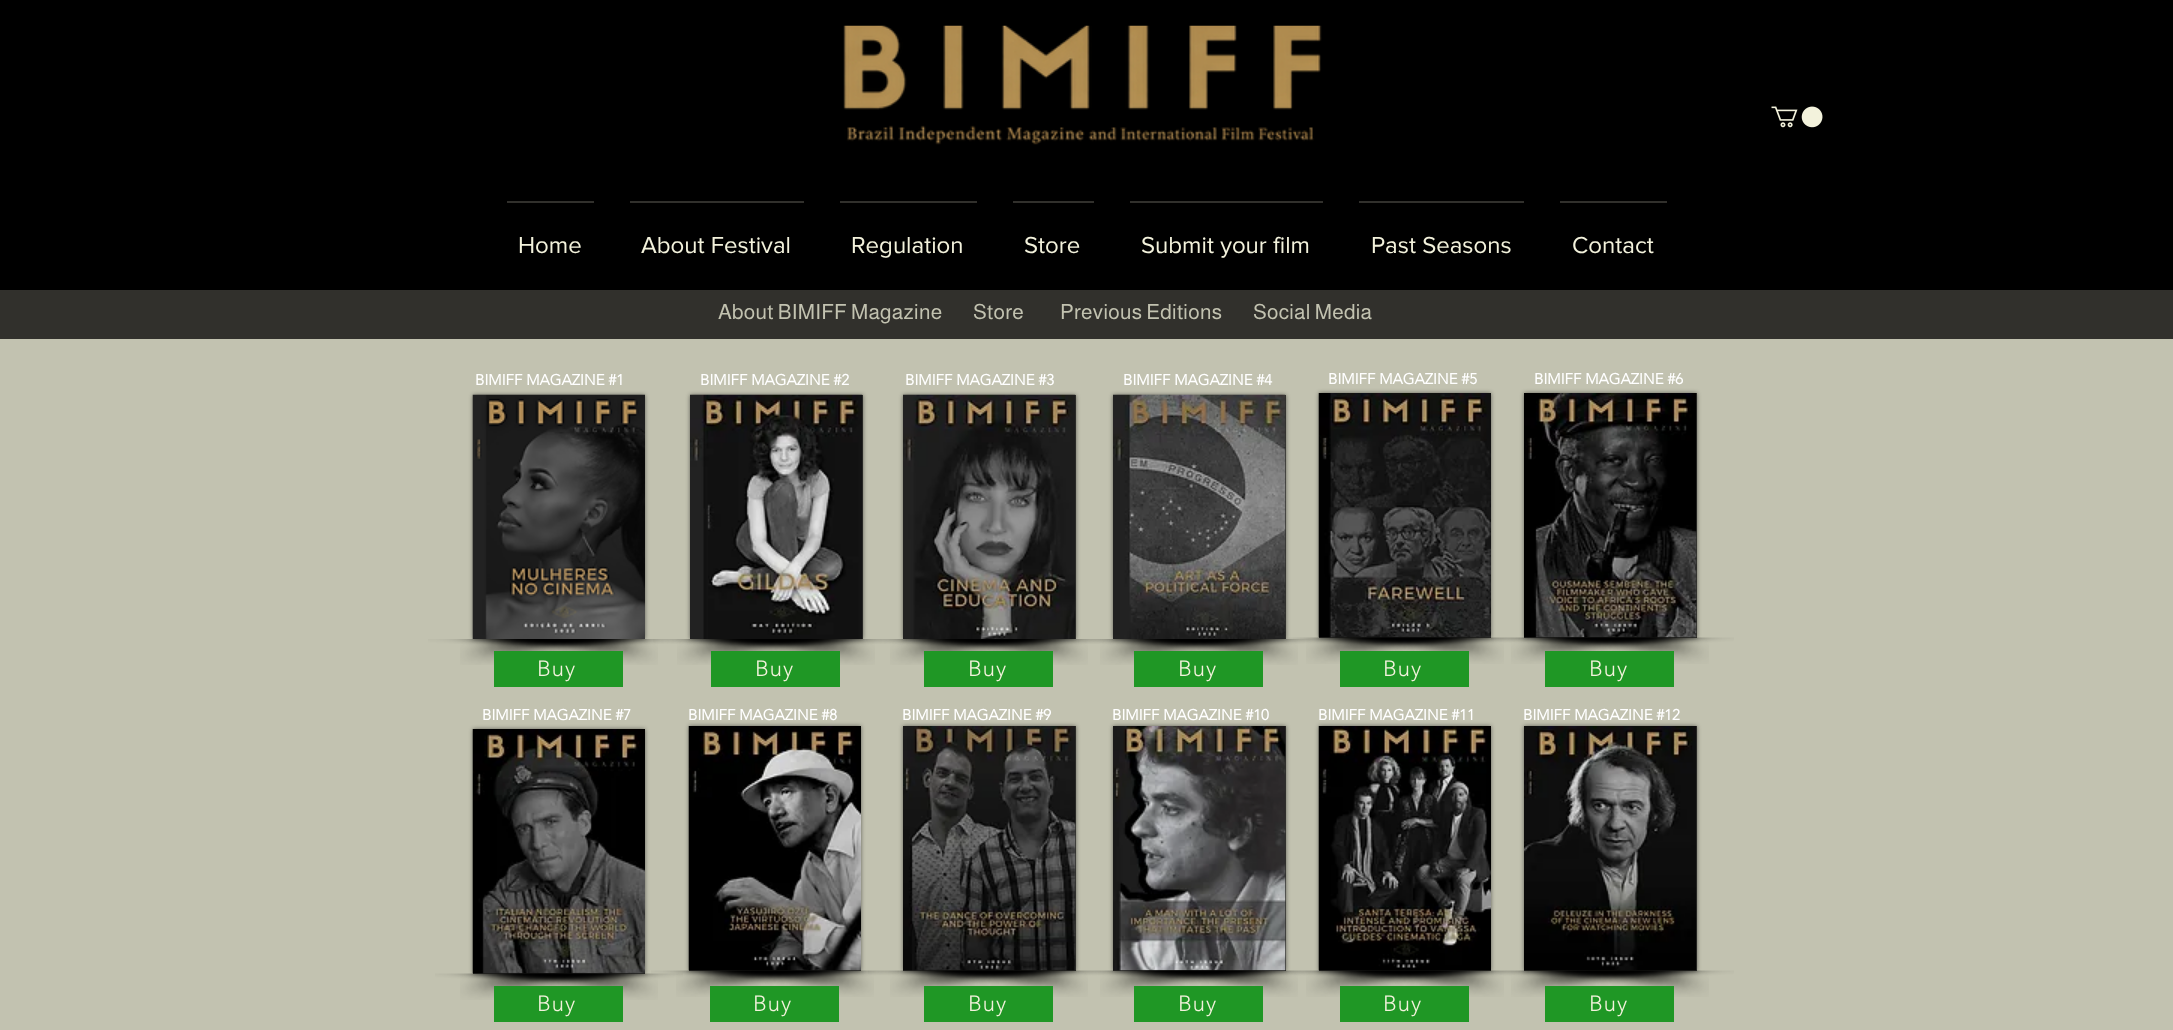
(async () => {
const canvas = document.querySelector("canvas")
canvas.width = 2173
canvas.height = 1030
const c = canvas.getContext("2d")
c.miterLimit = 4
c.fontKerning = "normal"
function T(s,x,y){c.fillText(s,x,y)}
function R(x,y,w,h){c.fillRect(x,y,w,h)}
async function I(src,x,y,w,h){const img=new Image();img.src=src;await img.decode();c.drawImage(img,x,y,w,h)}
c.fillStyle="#c2c2b0"
R(0,0,2173,1030)
c.fillStyle="#000"
R(0,0,2173,290)
await I("1.png",843,25,479,120)
await I("2.png",1771,106,52,22)
c.fillStyle="#31302c"
R(507,201,87,2)
c.font="24px 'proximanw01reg'"
c.fillStyle="#f3f2dc"
T("Home",518,253)
c.fillStyle="#31302c"
R(630,201,174,2)
c.fillStyle="#f3f2dc"
T("About Festival",641,253)
c.fillStyle="#31302c"
R(840,201,137,2)
c.fillStyle="#f3f2dc"
T("Regulation",851,253)
c.fillStyle="#31302c"
R(1013,201,81,2)
c.fillStyle="#f3f2dc"
T("Store",1024,253)
c.fillStyle="#31302c"
R(1130,201,193,2)
c.fillStyle="#f3f2dc"
T("Submit your film",1141,253)
c.fillStyle="#31302c"
R(1359,201,165,2)
c.fillStyle="#f3f2dc"
T("Past Seasons",1371,253)
c.fillStyle="#31302c"
R(1560,201,107,2)
c.fillStyle="#f3f2dc"
T("Contact",1572,253)
c.fillStyle="#31302c"
R(0,290,2173,49)
c.letterSpacing="0.25px"
c.font="21px Almarai"
c.fillStyle="#c2c2b0"
T("About BIMIFF Magazine",718,319)
T("Store",973,319)
T("Previous Editions",1060,319)
T("Social Media",1253,319)
c.letterSpacing="0px"
c.font="bold 15px 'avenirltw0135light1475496'"
c.fillStyle="#fff"
T("BIMIFF MAGAZINE #1",475,385)
T("BIMIFF MAGAZINE #2",700,385)
T("BIMIFF MAGAZINE #3",905,385)
T("BIMIFF MAGAZINE #4",1123,385)
T("BIMIFF MAGAZINE #5",1328,384)
T("BIMIFF MAGAZINE #6",1534,384)
c.fillStyle="#00000080"
c.filter="blur(2px)"
c.beginPath()
c.rect(473,395,172,244)
c.fill()
c.filter="none"
await I("3.png",472,394,173,245)
await I("5.png",460,639,230,26)
await I("4.png",428,639,230,26)
c.filter="blur(2px)"
c.beginPath()
c.rect(690,395,173,244)
c.fill()
c.filter="none"
c.fillStyle="#31302c"
R(862,395,1,244)
await I("6.png",690,394,173,245)
await I("8.png",677,639,230,26)
await I("7.png",653,639,222,26)
c.fillStyle="#00000080"
c.filter="blur(2px)"
c.beginPath()
c.rect(903,395,173,244)
c.fill()
c.filter="none"
c.fillStyle="#31302c"
R(1075,395,1,244)
await I("9.png",903,394,173,245)
await I("11.png",890,639,230,26)
await I("10.png",866,639,222,26)
c.fillStyle="#00000080"
c.filter="blur(2px)"
c.beginPath()
c.rect(1113,395,173,244)
c.fill()
c.filter="none"
c.fillStyle="#31302c"
R(1285,395,1,244)
await I("12.png",1113,394,173,245)
await I("14.png",1100,639,230,26)
await I("13.png",1078,639,220,26)
c.fillStyle="#00000080"
c.filter="blur(2px)"
c.beginPath()
c.rect(1319,393,172,245)
c.fill()
c.filter="none"
c.fillStyle="#31302c"
R(1319,637,172,1)
await I("15.png",1318,393,173,245)
await I("17.png",1306,637,223,27)
await I("16.png",1286,637,218,27)
c.fillStyle="#00000080"
c.filter="blur(2px)"
c.beginPath()
c.rect(1524,393,173,245)
c.fill()
c.filter="none"
c.fillStyle="#31302c"
R(1524,393,173,245)
await I("18.png",1524,393,173,245)
await I("20.png",1511,637,223,27)
await I("19.png",1491,637,218,27)
c.fillStyle="#1f9725"
R(494,651,129,36)
c.letterSpacing="1px"
c.font="300 22px 'avenirltw0135light1475496'"
c.fillStyle="#f3f2dc"
T("Buy",537,676)
c.fillStyle="#1f9725"
R(711,651,129,36)
c.fillStyle="#f3f2dc"
T("Buy",755,676)
c.fillStyle="#1f9725"
R(924,651,129,36)
c.fillStyle="#f3f2dc"
T("Buy",968,676)
c.fillStyle="#1f9725"
R(1134,651,129,36)
c.fillStyle="#f3f2dc"
T("Buy",1178,676)
c.fillStyle="#1f9725"
R(1340,651,129,36)
c.fillStyle="#f3f2dc"
T("Buy",1383,676)
c.fillStyle="#1f9725"
R(1545,651,129,36)
c.fillStyle="#f3f2dc"
T("Buy",1589,676)
c.letterSpacing="0px"
c.font="bold 15px 'avenirltw0135light1475496'"
c.fillStyle="#fff"
T("BIMIFF MAGAZINE #7",482,720)
T("BIMIFF MAGAZINE #8",688,720)
T("BIMIFF MAGAZINE #9",902,720)
T("BIMIFF MAGAZINE #10",1112,720)
T("BIMIFF MAGAZINE #11",1318,720)
T("BIMIFF MAGAZINE #12",1523,720)
c.fillStyle="#00000080"
c.filter="blur(2px)"
c.beginPath()
c.rect(473,729,172,245)
c.fill()
c.filter="none"
c.fillStyle="#31302c"
R(473,973,172,1)
await I("21.png",472,729,173,245)
await I("23.png",460,973,223,27)
await I("22.png",435,973,223,27)
c.fillStyle="#00000080"
c.filter="blur(2px)"
c.beginPath()
c.rect(689,726,172,245)
c.fill()
c.filter="none"
c.fillStyle="#31302c"
R(689,970,172,1)
await I("24.png",688,726,173,245)
await I("26.png",676,970,223,27)
await I("25.png",651,970,223,27)
c.fillStyle="#00000080"
c.filter="blur(2px)"
c.beginPath()
c.rect(903,726,173,245)
c.fill()
c.filter="none"
c.fillStyle="#31302c"
R(903,726,173,245)
await I("27.png",903,726,173,245)
await I("29.png",890,970,223,27)
await I("28.png",868,970,220,27)
c.fillStyle="#00000080"
c.filter="blur(2px)"
c.beginPath()
c.rect(1113,726,173,245)
c.fill()
c.filter="none"
c.fillStyle="#31302c"
R(1113,726,173,245)
await I("30.png",1113,726,173,245)
await I("32.png",1100,970,223,27)
await I("31.png",1078,970,220,27)
c.fillStyle="#00000080"
c.filter="blur(2px)"
c.beginPath()
c.rect(1319,726,172,245)
c.fill()
c.filter="none"
c.fillStyle="#31302c"
R(1319,970,172,1)
await I("33.png",1318,726,173,245)
await I("35.png",1306,970,223,27)
await I("34.png",1285,970,219,27)
c.fillStyle="#00000080"
c.filter="blur(2px)"
c.beginPath()
c.rect(1524,726,173,245)
c.fill()
c.filter="none"
c.fillStyle="#31302c"
R(1524,726,173,245)
await I("36.png",1524,726,173,245)
await I("38.png",1511,970,223,27)
await I("37.png",1491,970,218,27)
c.fillStyle="#1f9725"
R(494,986,129,36)
c.letterSpacing="1px"
c.font="300 22px 'avenirltw0135light1475496'"
c.fillStyle="#f3f2dc"
T("Buy",537,1011)
c.fillStyle="#1f9725"
R(710,986,129,36)
c.fillStyle="#f3f2dc"
T("Buy",753,1011)
c.fillStyle="#1f9725"
R(924,986,129,36)
c.fillStyle="#f3f2dc"
T("Buy",968,1011)
c.fillStyle="#1f9725"
R(1134,986,129,36)
c.fillStyle="#f3f2dc"
T("Buy",1178,1011)
c.fillStyle="#1f9725"
R(1340,986,129,36)
c.fillStyle="#f3f2dc"
T("Buy",1383,1011)
c.fillStyle="#1f9725"
R(1545,986,129,36)
c.fillStyle="#f3f2dc"
T("Buy",1589,1011)
})()
